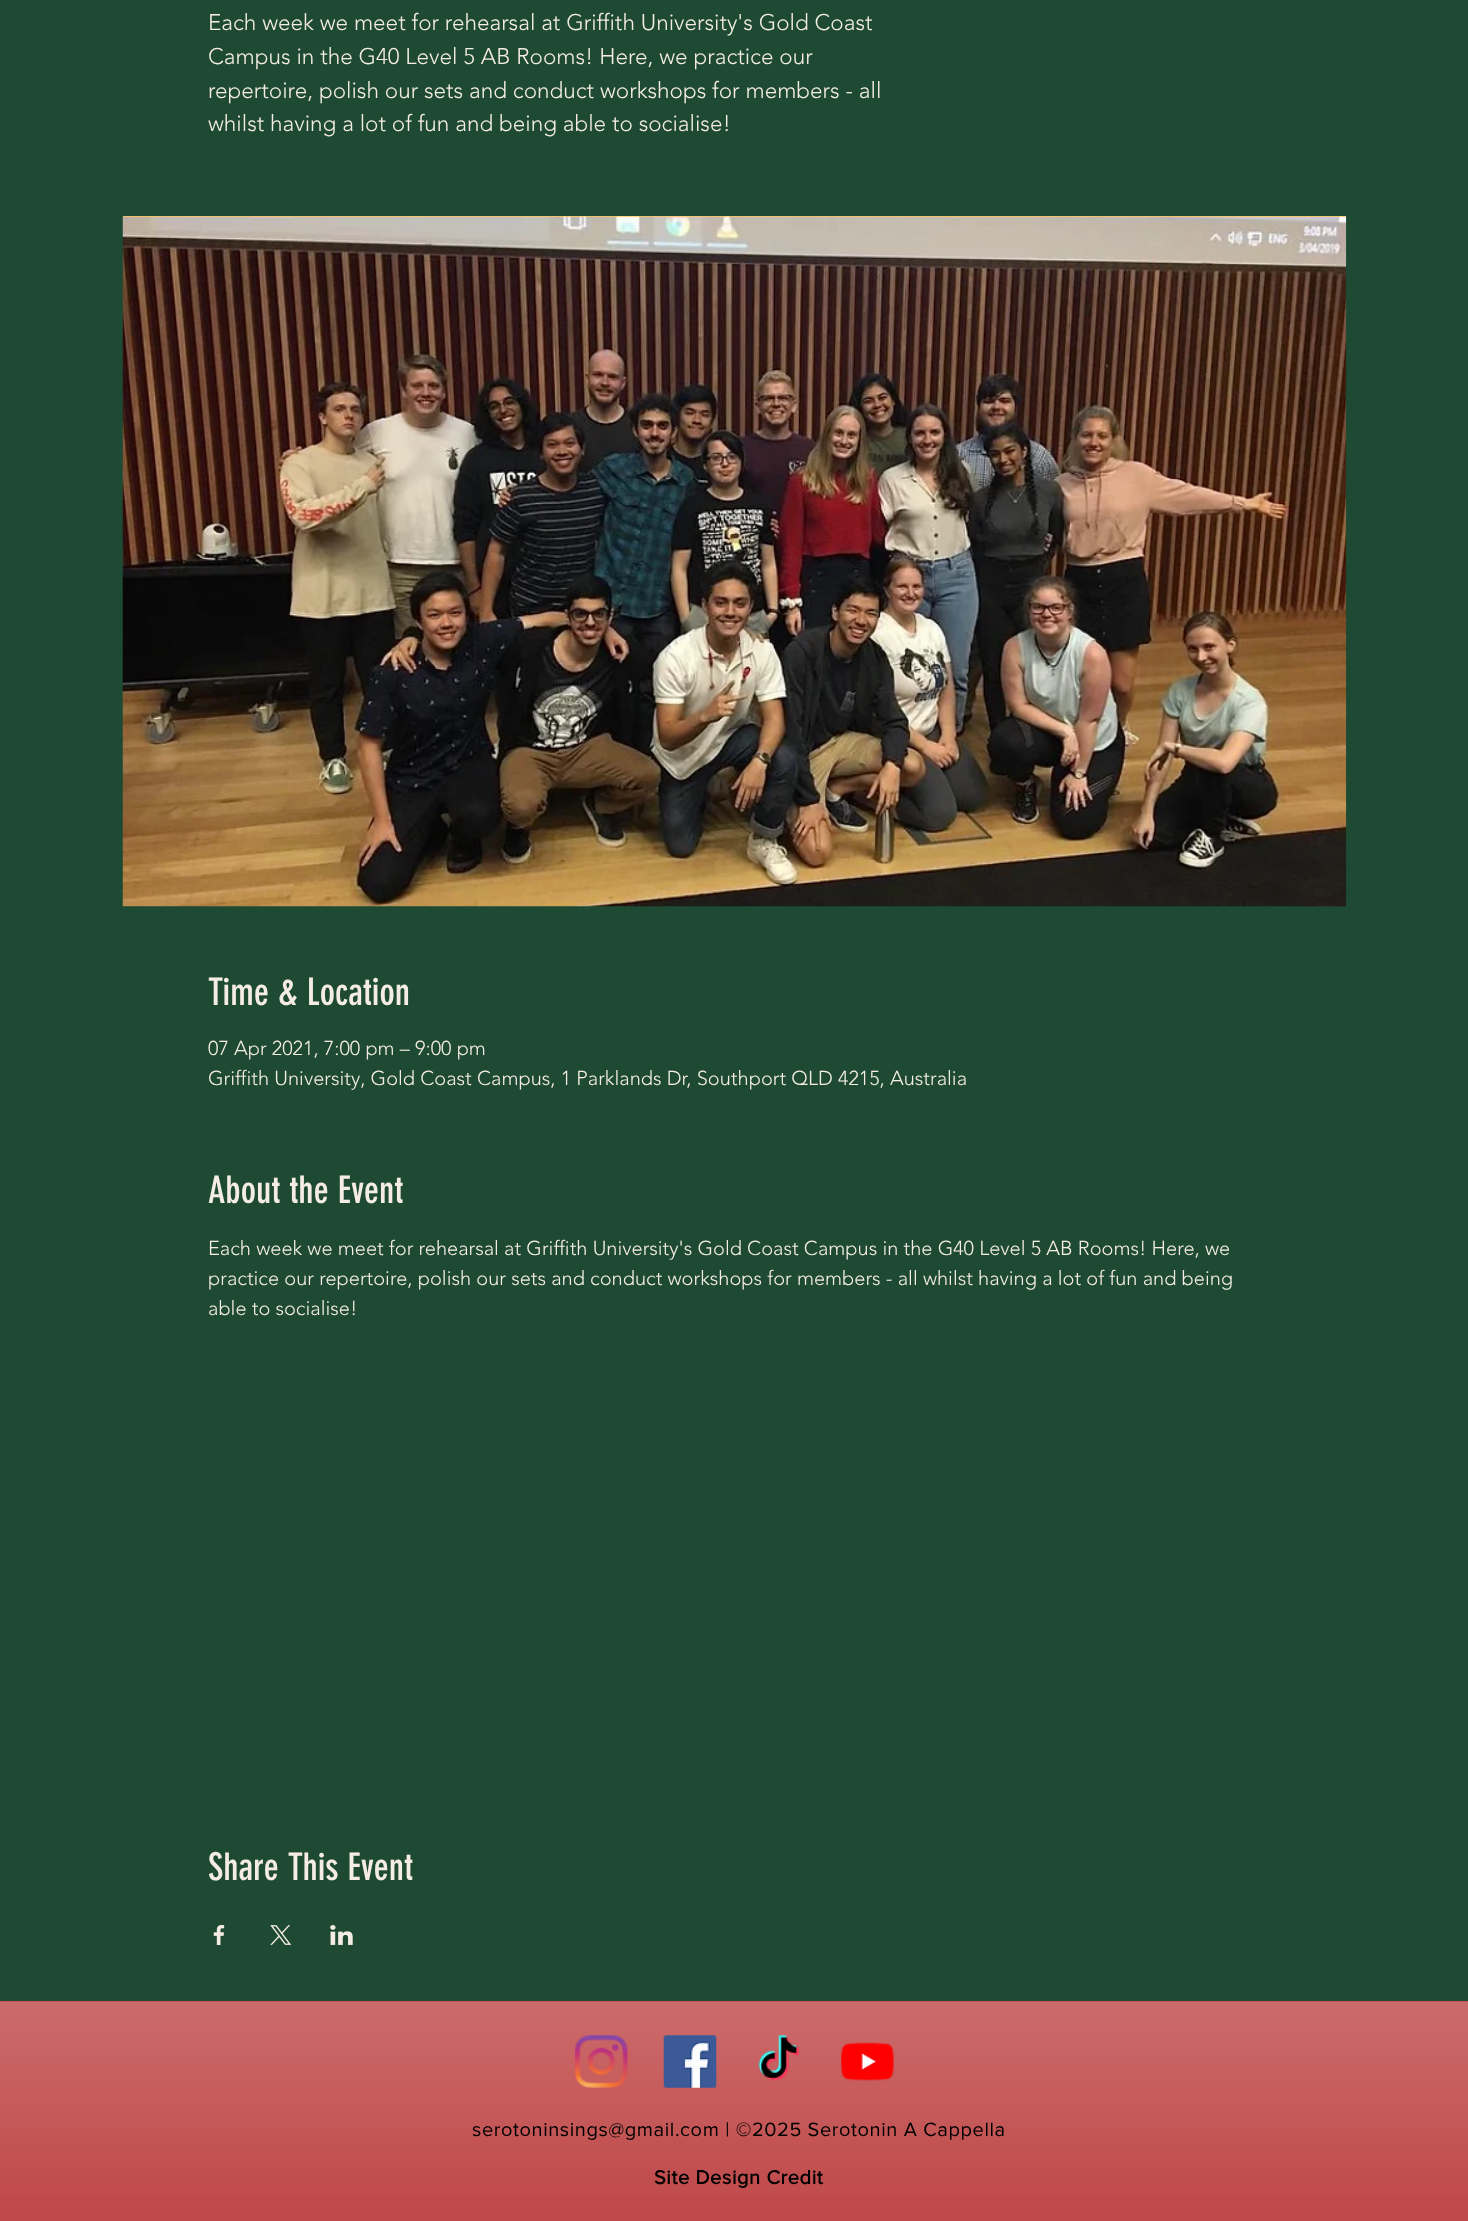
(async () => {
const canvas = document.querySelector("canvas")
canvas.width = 1468
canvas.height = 2221
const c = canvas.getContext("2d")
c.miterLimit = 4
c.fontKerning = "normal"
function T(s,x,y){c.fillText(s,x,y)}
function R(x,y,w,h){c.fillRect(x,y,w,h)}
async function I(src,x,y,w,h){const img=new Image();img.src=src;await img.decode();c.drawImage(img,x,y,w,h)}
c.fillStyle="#1e4a34"
R(0,0,1468,2221)
c.font="300 22.5px 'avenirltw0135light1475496'"
c.fillStyle="#f5ede5"
T("Each week we meet for rehearsal at Griffith University's Gold Coast",208,30)
T("Campus in the G40 Level 5 AB Rooms! Here, we practice our",208,64)
T("repertoire, polish our sets and conduct workshops for members - all",208,98)
T("whilst having a lot of fun and being able to socialise!",208,131)
c.fillStyle="#ffc657"
R(123,216,1223,1)
await I("1.png",122,216,1225,691)
c.font="37.5px 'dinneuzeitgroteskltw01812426'"
c.fillStyle="#f5ede5"
T("Time & Location",208,1005)
c.font="300 20px 'avenirltw0135light1475496'"
T("07 Apr 2021, 7:00 pm – 9:00 pm",208,1055)
T("Griffith University, Gold Coast Campus, 1 Parklands Dr, Southport QLD 4215, Australia",208,1085)
c.font="37.5px 'dinneuzeitgroteskltw01812426'"
T("About the Event",208,1203)
c.font="300 20px 'avenirltw0135light1475496'"
T("Each week we meet for rehearsal at Griffith University's Gold Coast Campus in the G40 Level 5 AB Rooms! Here, we",208,1255)
T("practice our repertoire, polish our sets and conduct workshops for members - all whilst having a lot of fun and being",208,1285)
T("able to socialise!",208,1315)
c.font="37.5px 'dinneuzeitgroteskltw01812426'"
T("Share This Event",208,1880)
await I("2.png",213,1925,12,20)
await I("3.png",270,1925,22,20)
await I("4.png",330,1925,23,20)
c.fillStyle="#ba3838"
R(0,2001,1468,220)
await I("5.png",0,2001,1468,220)
await I("6.png",575,2035,53,53)
await I("7.png",663,2035,54,53)
await I("8.png",758,2035,41,46)
await I("9.png",841,2042,53,39)
c.letterSpacing="0.6px"
c.font="20px 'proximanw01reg'"
c.fillStyle="#000"
T("serotoninsings@gmail.com | ©2025 Serotonin A Cappella",472,2136)
c.font="bold 20px 'proximanw01reg'"
T("Site Design Credit",654,2184)
})()
